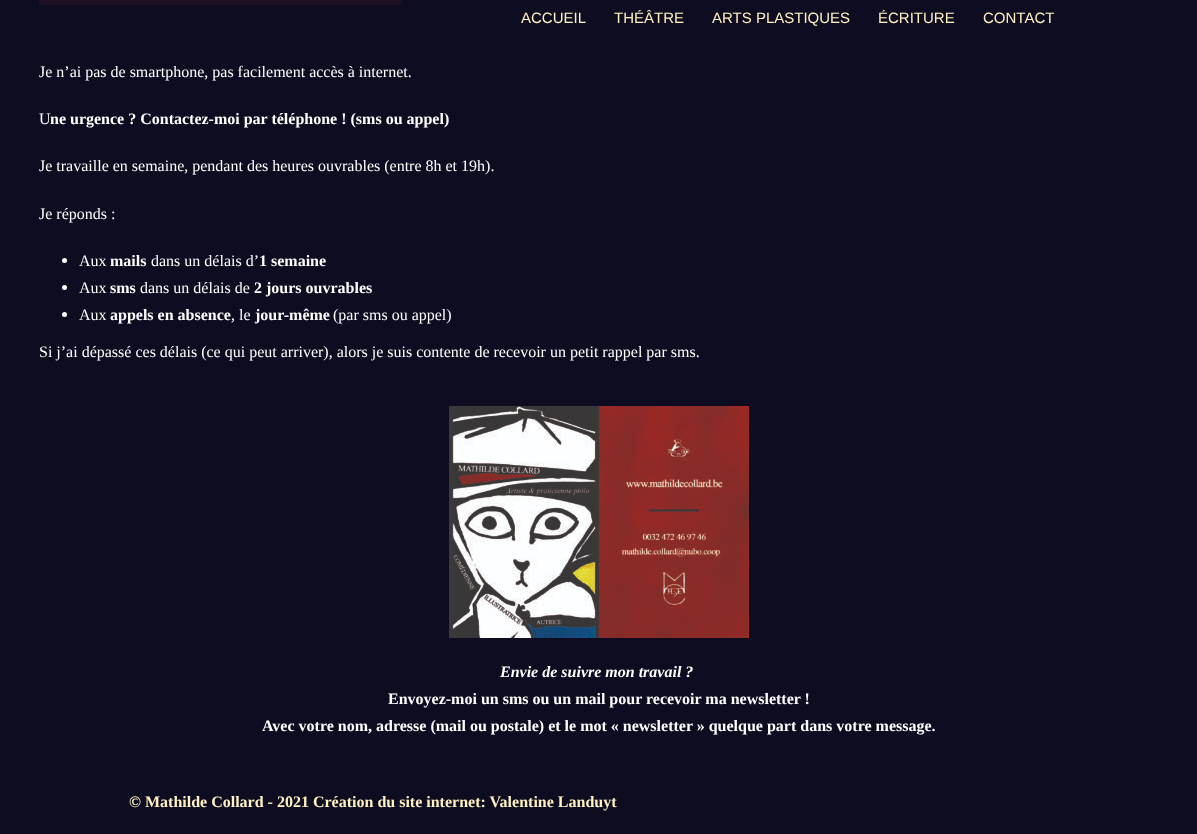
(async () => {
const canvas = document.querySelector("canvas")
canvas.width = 1197
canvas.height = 834
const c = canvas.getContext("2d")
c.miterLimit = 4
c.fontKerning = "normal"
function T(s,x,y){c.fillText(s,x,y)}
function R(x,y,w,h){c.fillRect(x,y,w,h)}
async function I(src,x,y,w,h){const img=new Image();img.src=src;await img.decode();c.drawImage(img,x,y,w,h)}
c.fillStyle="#0d0c21"
R(0,0,1197,834)
c.font="15px Liberation Sans"
c.fillStyle="#fff1c1"
T("ACCUEIL",521,23)
T("THÉÂTRE",614,23)
T("ARTS PLASTIQUES",712,23)
T("ÉCRITURE",878,23)
T("CONTACT",983,23)
c.fillStyle="#1c1023"
R(39,0,363,5)
c.font="16px Liberation Serif"
c.fillStyle="#fff"
T("Je n’ai pas de smartphone, pas facilement accès à internet.",39,77)
T("U",39,124)
c.font="bold 16px Liberation Serif"
T("ne urgence ? Contactez-moi par téléphone ! (sms ou appel)",50,124)
c.font="16px Liberation Serif"
T("Je travaille en semaine, pendant des heures ouvrables (entre 8h et 19h).",39,171)
T("Je réponds :",39,219)
c.beginPath()
c.arc(64.5,260.5,2.5,0,7)
c.fill()
T("Aux",79,266)
c.font="bold 16px Liberation Serif"
T("mails",110,266)
c.font="16px Liberation Serif"
T("dans un délais d’",151,266)
c.font="bold 16px Liberation Serif"
T("1 semaine",259,266)
c.beginPath()
c.arc(64.5,287.5,2.5,0,7)
c.fill()
c.font="16px Liberation Serif"
T("Aux",79,293)
c.font="bold 16px Liberation Serif"
T("sms",110,293)
c.font="16px Liberation Serif"
T("dans un délais de",140,293)
c.font="bold 16px Liberation Serif"
T("2 jours ouvrables",254,293)
c.beginPath()
c.arc(64.5,314.5,2.5,0,7)
c.fill()
c.font="16px Liberation Serif"
T("Aux",79,320)
c.font="bold 16px Liberation Serif"
T("appels en absence",110,320)
c.font="16px Liberation Serif"
T(", le",231,320)
c.font="bold 16px Liberation Serif"
T("jour-même",255,320)
c.font="16px Liberation Serif"
T("(par sms ou appel)",333,320)
T("Si j’ai dépassé ces délais (ce qui peut arriver), alors je suis contente de recevoir un petit rappel par sms.",39,357)
await I("1.png",449,406,300,232)
c.font="italic bold 16px Liberation Serif"
T("Envie de suivre mon travail ?",500,677)
c.font="bold 16px Liberation Serif"
T("Envoyez-moi un sms ou un mail pour recevoir ma newsletter !",388,704)
T("Avec votre nom, adresse (mail ou postale) et le mot « newsletter » quelque part dans votre message.",262,731)
c.fillStyle="#fff1c1"
T("© Mathilde Collard - 2021 Création du site internet: Valentine Landuyt",129,807)
})()
